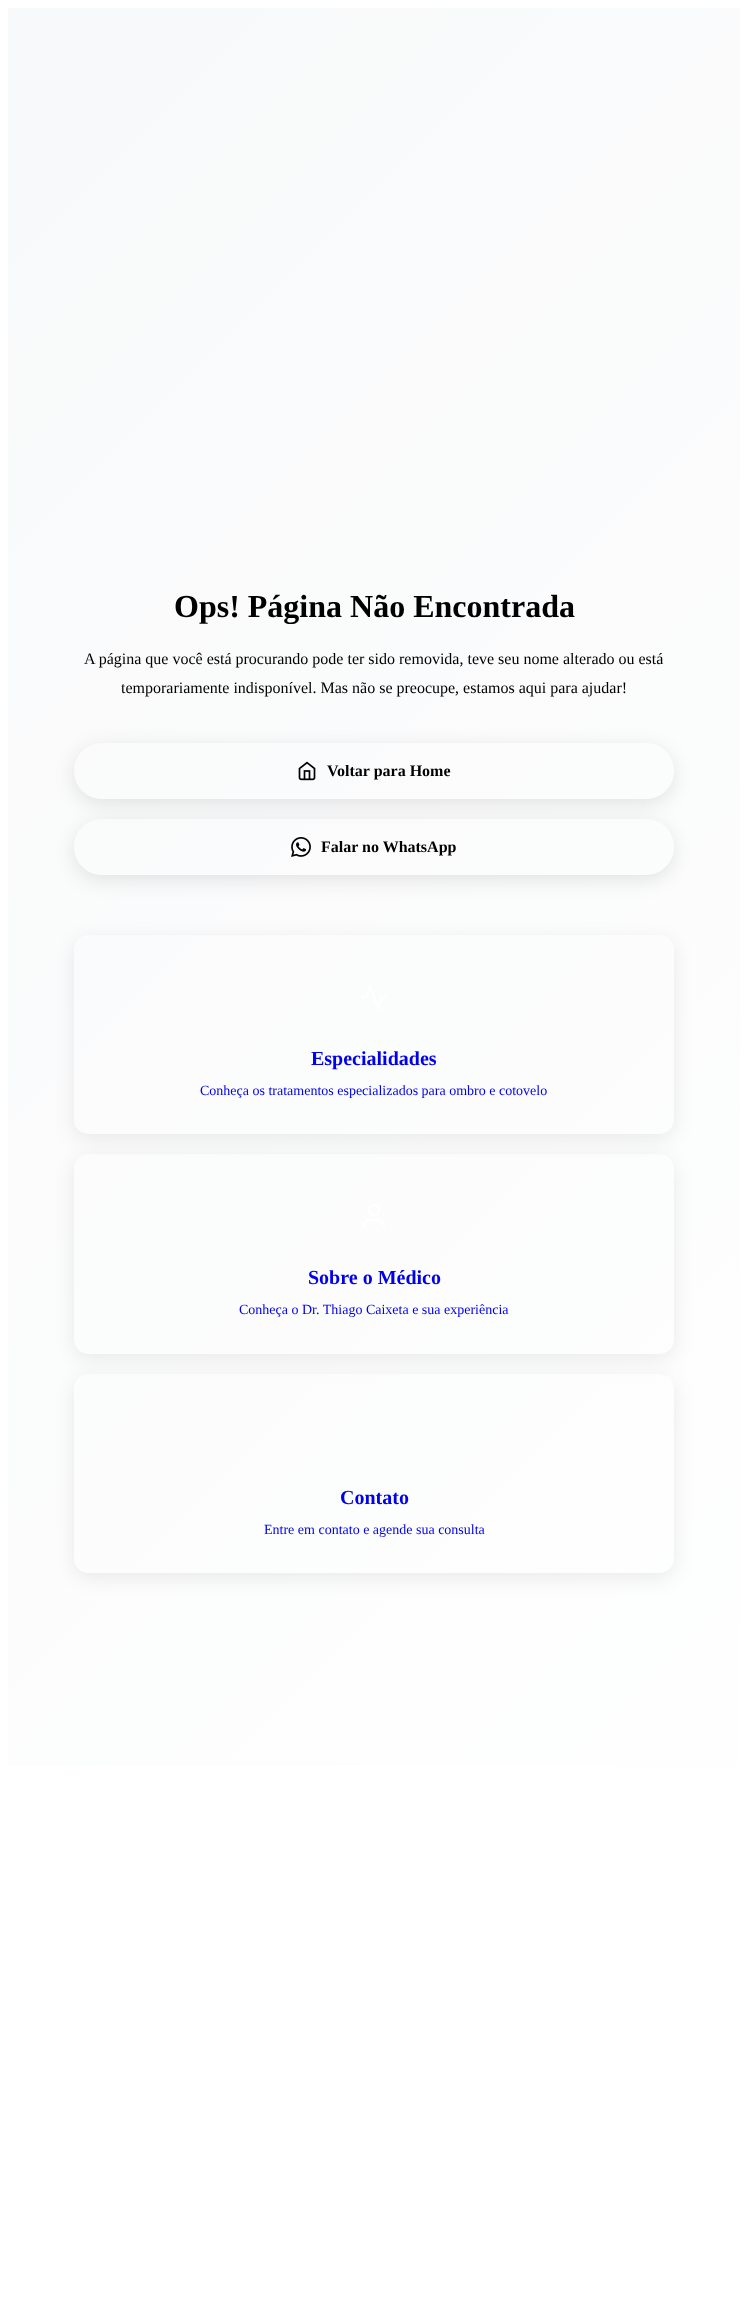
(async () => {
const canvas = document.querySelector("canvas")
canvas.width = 748
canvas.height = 2303
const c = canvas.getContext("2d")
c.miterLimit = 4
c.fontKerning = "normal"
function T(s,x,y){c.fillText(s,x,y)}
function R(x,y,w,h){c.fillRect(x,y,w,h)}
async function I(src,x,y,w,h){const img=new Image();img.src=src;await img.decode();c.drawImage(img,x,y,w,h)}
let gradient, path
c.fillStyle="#fff"
R(0,0,748,2303)
gradient = c.createLinearGradient(-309,326,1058,1693)
gradient.addColorStop(0,"#f8f9fa")
gradient.addColorStop(1,"#fff")
c.fillStyle = gradient
R(8,8,732,1758)
c.font="bold 32px Liberation Serif"
c.fillStyle="#000"
T("Ops! Página Não Encontrada",174,617)
c.font="16px Liberation Serif"
T("A página que você está procurando pode ter sido removida, teve seu nome alterado ou está",84,664)
T("temporariamente indisponível. Mas não se preocupe, estamos aqui para ajudar!",121,693)
c.save()
path = new Path2D("M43 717h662v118h-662zm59 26h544c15.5 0 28 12.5 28 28c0 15.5-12.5 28-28 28h-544c-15.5 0-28-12.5-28-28c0-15.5 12.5-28 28-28z")
c.clip(path,"evenodd")
c.fillStyle="#0000001a"
c.filter="blur(10px)"
c.beginPath()
c.roundRect(74,748,600,56,28)
c.fill()
c.filter="none"
c.restore()
await I("1.png",298,761,18,20)
c.font="bold 16px Liberation Serif"
T("Voltar para Home",327,776)
c.save()
path = new Path2D("M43 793h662v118h-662zm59 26h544c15.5 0 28 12.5 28 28c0 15.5-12.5 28-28 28h-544c-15.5 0-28-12.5-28-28c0-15.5 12.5-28 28-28z")
c.clip(path,"evenodd")
c.fillStyle="#0000001a"
c.filter="blur(10px)"
c.beginPath()
c.roundRect(74,824,600,56,28)
c.fill()
c.filter="none"
c.restore()
await I("2.png",291,837,20,20)
T("Falar no WhatsApp",321,852)
c.save()
path = new Path2D("M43 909h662v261h-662zm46 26h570c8.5 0 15 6.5 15 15v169c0 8.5-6.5 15-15 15h-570c-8.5 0-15-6.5-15-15v-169c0-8.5 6.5-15 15-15z")
c.clip(path,"evenodd")
c.fillStyle="#00000014"
c.filter="blur(10px)"
c.beginPath()
c.roundRect(74,940,600,199,15)
c.fill()
c.filter="none"
c.restore()
path = new Path2D("M386.5 997h-5l-3.5 11l-8-22l-3.5 11h-5")
c.strokeStyle="#fff"
c.lineWidth=2.5
c.stroke(path)
c.font="bold 20px Liberation Serif"
c.fillStyle="#00e"
T("Especialidades",311,1065)
c.font="14px Liberation Serif"
T("Conheça os tratamentos especializados para ombro e cotovelo",200,1095)
c.save()
path = new Path2D("M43 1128h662v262h-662zm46 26h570c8.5 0 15 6.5 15 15v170c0 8.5-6.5 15-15 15h-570c-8.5 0-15-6.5-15-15v-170c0-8.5 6.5-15 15-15z")
c.clip(path,"evenodd")
c.fillStyle="#00000014"
c.filter="blur(10px)"
c.beginPath()
c.roundRect(74,1159,600,200,15)
c.fill()
c.filter="none"
c.restore()
path = new Path2D("M384 1227c0-7.5-3-7-10-7c-7 0-10-.5-10 7")
c.stroke(path)
c.beginPath()
c.arc(374,1210,5,0,7)
c.stroke()
c.font="bold 20px Liberation Serif"
T("Sobre o Médico",308,1284)
c.font="14px Liberation Serif"
T("Conheça o Dr. Thiago Caixeta e sua experiência",239,1314)
c.save()
path = new Path2D("M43 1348h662v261h-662zm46 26h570c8.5 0 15 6.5 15 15v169c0 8.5-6.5 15-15 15h-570c-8.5 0-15-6.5-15-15v-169c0-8.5 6.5-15 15-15z")
c.clip(path,"evenodd")
c.fillStyle="#00000014"
c.filter="blur(10px)"
c.beginPath()
c.roundRect(74,1379,600,199,15)
c.fill()
c.filter="none"
c.restore()
c.font="bold 20px Liberation Serif"
T("Contato",340,1504)
c.font="14px Liberation Serif"
T("Entre em contato e agende sua consulta",264,1534)
})()
